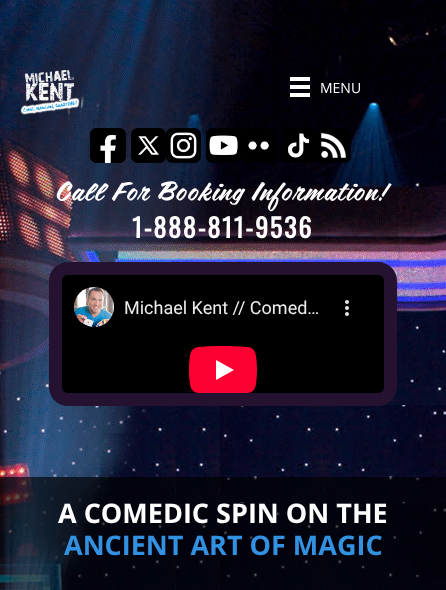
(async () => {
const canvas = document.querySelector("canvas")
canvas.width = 446
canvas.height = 590
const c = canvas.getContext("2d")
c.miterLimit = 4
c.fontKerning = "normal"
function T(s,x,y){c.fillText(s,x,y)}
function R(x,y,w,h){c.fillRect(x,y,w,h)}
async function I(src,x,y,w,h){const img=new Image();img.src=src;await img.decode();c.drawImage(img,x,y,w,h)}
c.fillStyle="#fff"
R(0,0,446,590)
await I("1.png",0,0,446,590)
await I("2.png",20,70,60,45)
R(290,77,20,4)
R(290,85,20,4)
R(290,93,20,4)
c.font="14px Open Sans"
T("MENU",320,93)
await I("3.png",90,128,36,35)
await I("4.png",131,128,35,35)
await I("5.png",166,128,35,35)
await I("6.png",206,128,35,35)
await I("7.png",241,128,35,35)
await I("8.png",281,128,35,35)
await I("9.png",316,128,35,35)
c.letterSpacing="1.8px"
c.font="26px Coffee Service"
T("Call For Booking Information!",56,200)
c.font="bold 26px Oswald"
T("1-888-811-9536",132,238)
c.beginPath()
c.roundRect(55.5,268.5,335,131,12.5)
c.strokeStyle="#251231"
c.lineWidth=13
c.stroke()
await I("10.png",62,275,322,118)
c.fillStyle="#000000a6"
R(0,477,446,52)
c.letterSpacing="0px"
c.font="bold 27px Open Sans"
c.fillStyle="#fff"
T("A COMEDIC SPIN ON THE",58,523)
c.fillStyle="#000000a6"
R(0,529,446,33)
c.fillStyle="#3291e0"
T("ANCIENT ART OF MAGIC",64,555)
c.fillStyle="#000000a6"
R(0,562,446,28)
})()
